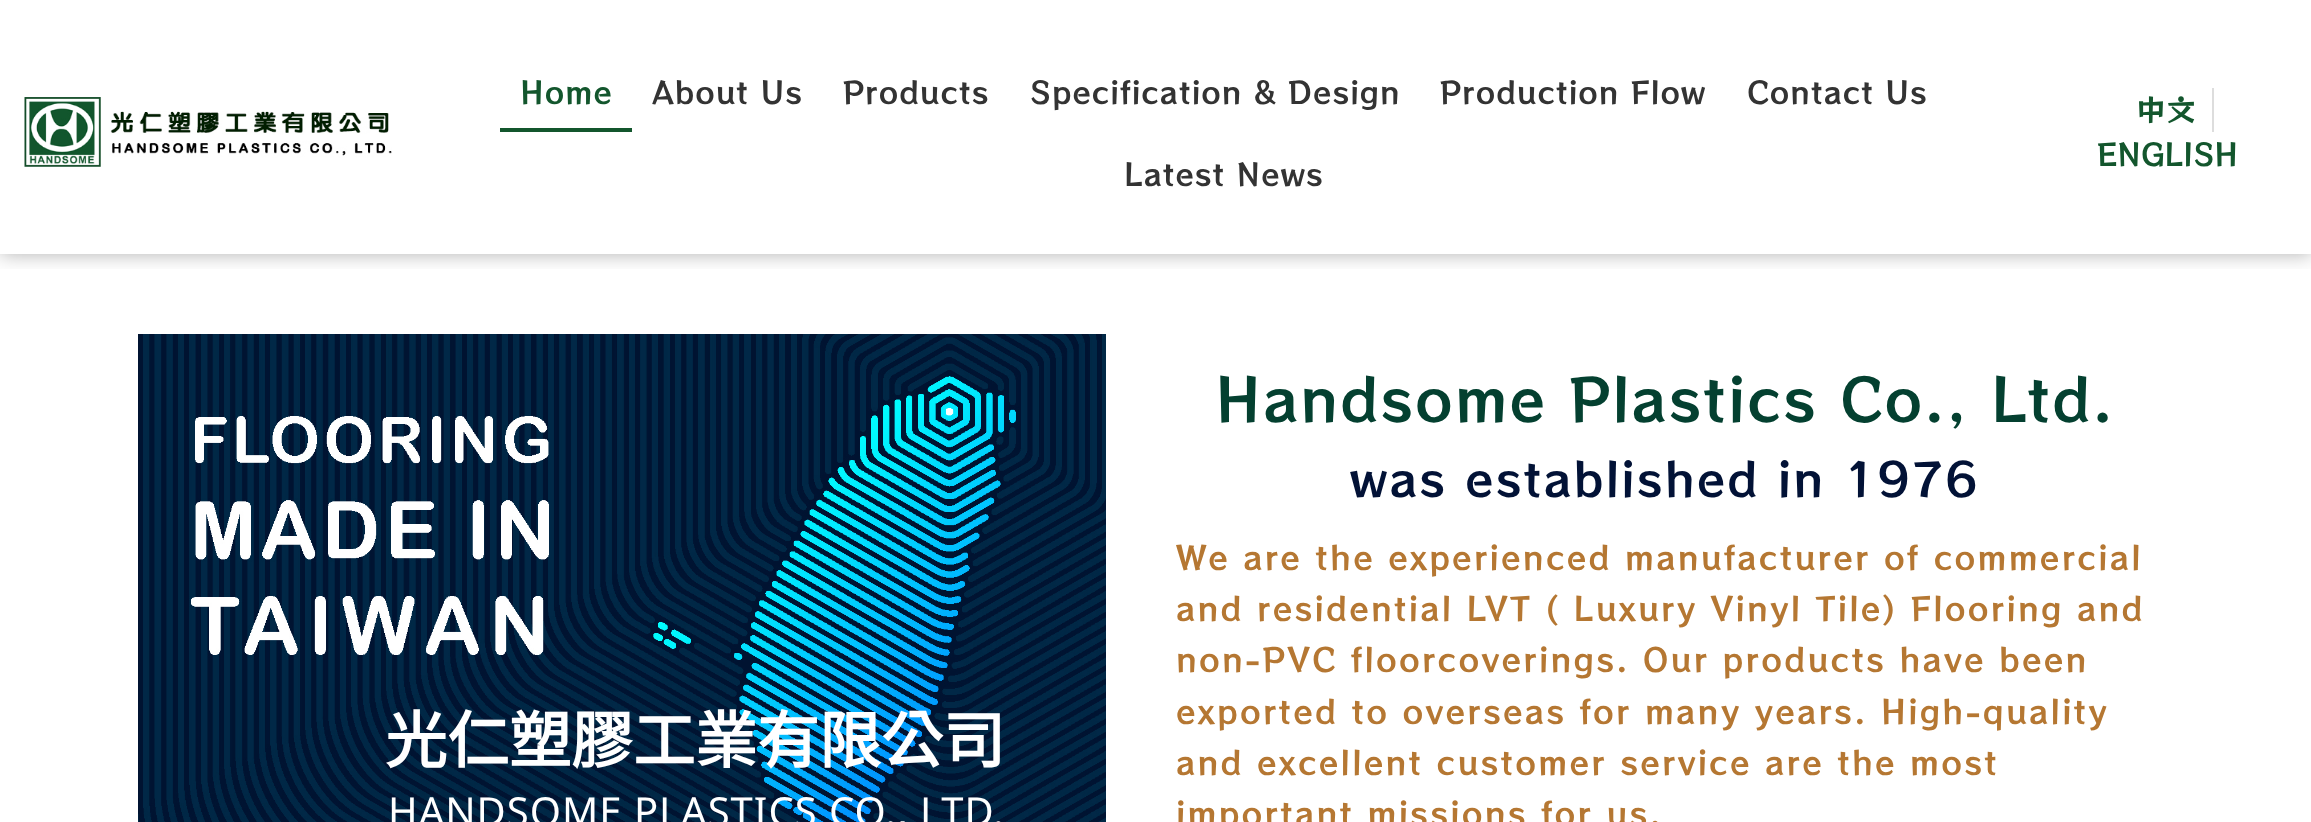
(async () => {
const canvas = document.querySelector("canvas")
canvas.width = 2311
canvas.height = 822
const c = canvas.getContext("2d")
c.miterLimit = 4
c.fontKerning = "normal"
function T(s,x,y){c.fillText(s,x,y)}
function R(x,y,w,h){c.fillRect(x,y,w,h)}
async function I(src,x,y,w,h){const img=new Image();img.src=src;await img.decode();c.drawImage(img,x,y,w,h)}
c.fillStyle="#fff"
R(0,0,2311,822)
c.save()
c.beginPath()
c.rect(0,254,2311,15)
c.clip()
c.fillStyle="#0000004f"
c.filter="blur(10px)"
c.beginPath()
c.rect(0,0,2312,254)
c.fill()
c.filter="none"
c.restore()
await I("1.png",24,97,368,70)
c.letterSpacing="1px"
c.font="30px RocknRoll One"
c.fillStyle="#13562d"
T("Home",520,104)
R(500,128,132,4)
c.fillStyle="#333"
T("About Us",652,104)
T("Products",843,104)
T("Specification & Design",1030,104)
T("Production Flow",1440,104)
T("Contact Us",1747,104)
T("Latest News",1124,186)
c.letterSpacing="0px"
c.fillStyle="#13562d"
T("中文",2136,121)
c.fillStyle="#ddd"
R(2212,88,2,44)
c.fillStyle="#13562d"
T("ENGLISH",2097,166)
await I("2.png",138,334,968,488)
c.font="bold 62px Noto Sans CJK TC"
c.fillStyle="#fff"
T("光仁塑膠工業有限公司",385,763)
c.letterSpacing="1px"
c.font="40px Noto Sans"
T("HANDSOME PLASTICS CO., LTD.",388,826)
c.letterSpacing="2.2px"
c.font="58px RocknRoll One"
c.fillStyle="#044030"
T("Handsome Plastics Co., Ltd.",1215,422)
c.font="46px RocknRoll One"
c.fillStyle="#021236"
T("was established in 1976",1350,497)
c.font="32px RocknRoll One"
c.fillStyle="#b57732"
T("We are the experienced manufacturer of commercial",1176,570)
T("and residential LVT ( Luxury Vinyl Tile) Flooring and",1176,621)
T("non-PVC floorcoverings. Our products have been",1176,672)
T("exported to overseas for many years. High-quality",1176,724)
T("and excellent customer service are the most",1176,775)
T("important missions for us.",1176,826)
})()
